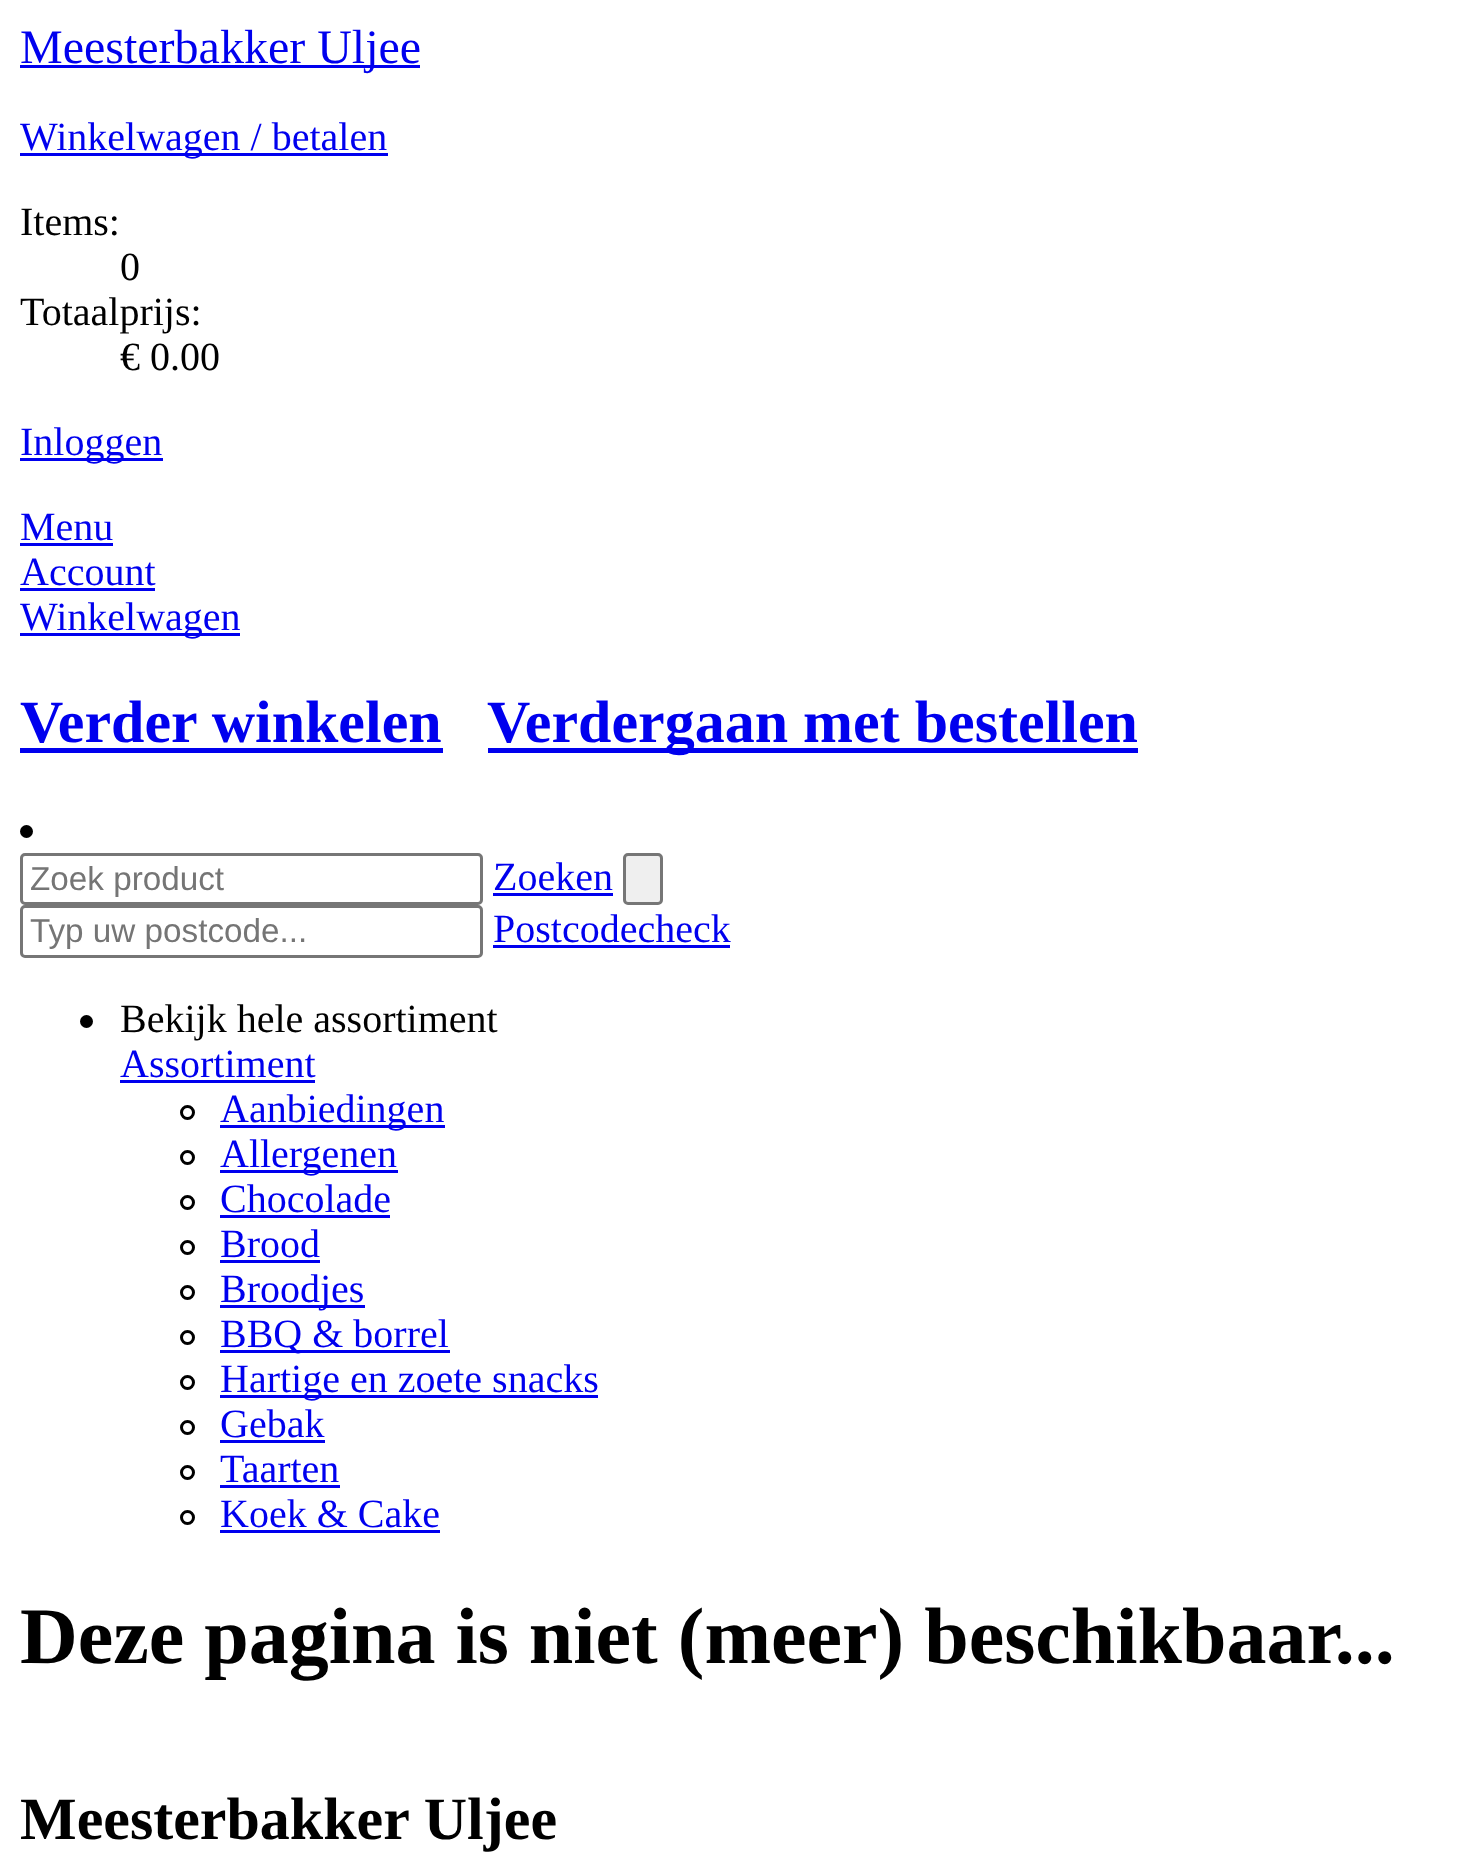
(async () => {
const canvas = document.querySelector("canvas")
canvas.width = 1459
canvas.height = 1866
const c = canvas.getContext("2d")
c.miterLimit = 4
c.fontKerning = "normal"
function T(s,x,y){c.fillText(s,x,y)}
function R(x,y,w,h){c.fillRect(x,y,w,h)}
c.fillStyle="#fff"
R(0,0,1459,1866)
c.fillStyle="#00e"
R(20,65,400,3)
c.font="48px Liberation Serif"
T("Meesterbakker Uljee",20,63)
R(20,153,368,3)
c.font="40px Liberation Serif"
T("Winkelwagen / betalen",20,150)
c.fillStyle="#000"
T("Items:",20,235)
T("0",120,280)
T("Totaalprijs:",20,325)
T("€ 0.00",120,370)
c.fillStyle="#00e"
R(20,458,143,3)
T("Inloggen",20,455)
T("Menu",20,540)
R(20,543,93,3)
T("Account",20,585)
R(20,588,135,3)
R(20,633,220,3)
T("Winkelwagen",20,630)
c.font="bold 60px Liberation Serif"
T("Verder winkelen",20,742)
R(20,748,423,5)
R(488,748,650,5)
T("Verdergaan met bestellen",487,742)
c.fillStyle="#000"
c.beginPath()
c.arc(26.5,831.5,6.5,0,7)
c.fill()
c.beginPath()
c.roundRect(21.5,854.5,460,49,3.5)
c.strokeStyle="#767676"
c.lineWidth=3
c.stroke()
c.font="33.25px Liberation Sans"
c.fillStyle="#757575"
T("Zoek product",30,890)
c.font="40px Liberation Serif"
c.fillStyle="#00e"
T("Zoeken",493,890)
R(493,893,120,3)
c.fillStyle="#efefef"
c.beginPath()
c.roundRect(624.5,854.5,37,49,3.5)
c.fill()
c.stroke()
c.beginPath()
c.roundRect(21.5,906.5,460,50,3.5)
c.stroke()
c.font="33.25px Liberation Sans"
c.fillStyle="#757575"
T("Typ uw postcode...",30,942)
c.font="40px Liberation Serif"
c.fillStyle="#00e"
T("Postcodecheck",493,942)
R(493,945,237,3)
c.fillStyle="#000"
c.beginPath()
c.arc(86.5,1021.5,6.5,0,7)
c.fill()
T("Bekijk hele assortiment",120,1032)
c.fillStyle="#00e"
T("Assortiment",120,1077)
R(120,1080,195,3)
c.beginPath()
c.arc(187.5,1112.5,6,0,7)
c.strokeStyle="#000"
c.stroke()
R(220,1125,225,3)
T("Aanbiedingen",220,1122)
c.beginPath()
c.arc(187.5,1157.5,6,0,7)
c.stroke()
R(220,1170,178,3)
T("Allergenen",220,1167)
c.beginPath()
c.arc(187.5,1202.5,6,0,7)
c.stroke()
T("Chocolade",220,1212)
R(220,1215,170,3)
c.beginPath()
c.arc(187.5,1247.5,6,0,7)
c.stroke()
T("Brood",220,1257)
R(220,1260,100,3)
c.beginPath()
c.arc(187.5,1292.5,6,0,7)
c.stroke()
R(220,1305,145,3)
T("Broodjes",220,1302)
c.beginPath()
c.arc(187.5,1337.5,6,0,7)
c.stroke()
R(220,1350,230,3)
T("BBQ & borrel",220,1347)
c.beginPath()
c.arc(187.5,1382.5,6,0,7)
c.stroke()
R(220,1395,378,3)
T("Hartige en zoete snacks",220,1392)
c.beginPath()
c.arc(187.5,1427.5,6,0,7)
c.stroke()
T("Gebak",220,1437)
R(220,1440,105,3)
c.beginPath()
c.arc(187.5,1472.5,6,0,7)
c.stroke()
T("Taarten",220,1482)
R(220,1485,120,3)
c.beginPath()
c.arc(187.5,1517.5,6,0,7)
c.stroke()
T("Koek & Cake",220,1527)
R(220,1530,220,3)
c.font="bold 80px Liberation Serif"
c.fillStyle="#000"
T("Deze pagina is niet (meer) beschikbaar...",20,1663)
c.font="bold 60px Liberation Serif"
T("Meesterbakker Uljee",20,1839)
})()
